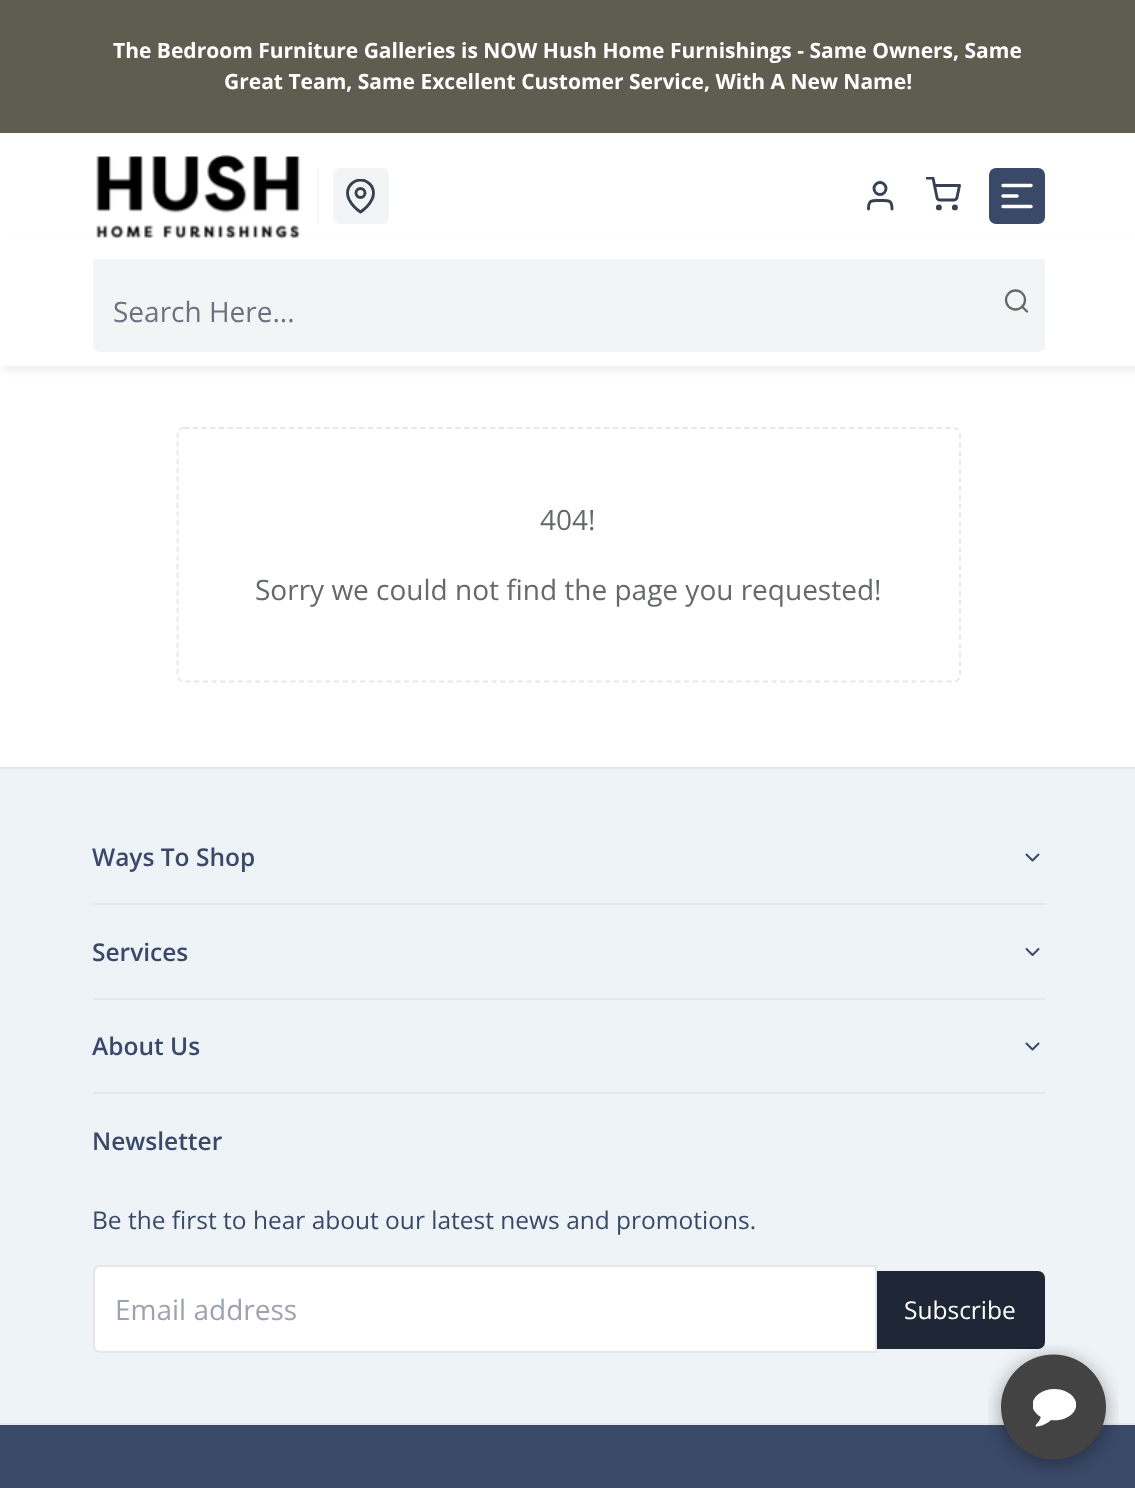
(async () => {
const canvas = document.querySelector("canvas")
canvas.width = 1135
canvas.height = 1488
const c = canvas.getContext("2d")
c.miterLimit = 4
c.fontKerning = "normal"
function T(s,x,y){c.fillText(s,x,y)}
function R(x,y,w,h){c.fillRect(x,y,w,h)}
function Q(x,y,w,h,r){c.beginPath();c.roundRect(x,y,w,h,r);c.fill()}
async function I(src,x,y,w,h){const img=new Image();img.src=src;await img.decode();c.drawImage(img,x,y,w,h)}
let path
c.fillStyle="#fff"
R(0,0,1135,1488)
c.fillStyle="#5f5c50"
R(0,0,1135,133)
c.font="bold 21px Open Sans"
c.fillStyle="#fff"
T("The Bedroom Furniture Galleries is NOW Hush Home Furnishings - Same Owners, Same",113,58)
T("Great Team, Same Excellent Customer Service, With A New Name!",224,89)
c.fillStyle="#00000012"
c.filter="blur(4.5px)"
c.beginPath()
c.rect(4,242,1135,129)
c.fill()
c.filter="none"
c.fillStyle="#fff"
R(0,259,1135,107)
c.fillStyle="#f3f4f6"
Q(93,250,952,102,7)
c.fillStyle="#fff"
R(0,237,1135,22)
await I("1.png",96,154,204,85)
c.fillStyle="#f3f4f6"
R(317,168,2,56)
Q(333,168,56,56,7)
c.save()
c.beginPath()
c.rect(343,179,35,35)
c.clip()
path = new Path2D("M373.5 193c0 10.5-13 19-13 19c0 0-13-8.5-13-19c0-7 6-13 13-13c7 0 13 6 13 13z")
c.strokeStyle="#374151"
c.lineWidth=2.9
c.lineCap="round"
c.lineJoin="round"
c.stroke(path)
c.restore()
c.beginPath()
c.arc(360.5,193,4.5,0,7)
c.strokeStyle="#374151"
c.lineWidth=2.9
c.stroke()
path = new Path2D("M892 209c0-9.5-3.5-8.5-12-8.5c-8 0-11.5-1-11.5 8.5")
c.lineCap="round"
c.lineJoin="round"
c.stroke(path)
c.beginPath()
c.arc(880,188.5,6,0,7)
c.stroke()
c.beginPath()
c.arc(938.9,207.4,1.5,0,7)
c.stroke()
c.beginPath()
c.arc(954.9,207.4,1.5,0,7)
c.stroke()
c.save()
c.beginPath()
c.rect(926,177,35,35)
c.clip()
path = new Path2D("M927 178h6l4 19.5c0 1.5 1.5 2.5 3 2.5h14c1.5 0 2.5-1 3-2.5l2.5-12h-25")
c.stroke(path)
c.restore()
c.fillStyle="#3a4968"
Q(989,168,56,56,7)
path = new Path2D("M1003 185.5h28m-28 10.5h14m-14 10.5h28")
c.strokeStyle="#fff"
c.lineWidth=3.5
c.stroke(path)
c.fillStyle="#f3f4f6"
Q(93,271,952,81,7)
c.font="28px Open Sans"
c.fillStyle="#6b7280"
T("Search Here...",113,322)
c.beginPath()
c.arc(1015.5,300,9.5,0,7)
c.strokeStyle="#656a67"
c.lineWidth=2.3
c.stroke()
path = new Path2D("M1027 311.5l-5-5")
c.stroke(path)
path = new Path2D("M184 428h770c3 0 6 2.5 6 6v241.5c0 3.5-3 6-6 6h-770c-3.5 0-6.5-2.5-6.5-6v-241.5c0-3.5 3-6 6.5-6z")
c.strokeStyle="#e5e7eb"
c.lineWidth=1.8
c.lineCap="butt"
c.lineJoin="miter"
c.setLineDash([5.25,3.5])
c.stroke(path)
c.fillStyle="#656a67"
T("404!",540,530)
T("Sorry we could not find the page you requested!",255,600)
c.fillStyle="#eef3f7"
R(0,769,1135,654)
c.fillStyle="#e5e5e5"
R(0,767,1135,2)
c.fillStyle="#e5e7eb"
R(0,1423,1135,2)
R(93,903,952,2)
c.font="600 24.5px Open Sans"
c.fillStyle="#3a4968"
T("Ways To Shop",92,866)
path = new Path2D("M1026.5 854.5l6 6l6-6")
c.strokeStyle="#3a4968"
c.lineWidth=2
c.lineCap="round"
c.lineJoin="round"
c.setLineDash([])
c.stroke(path)
c.fillStyle="#e5e7eb"
R(93,998,952,2)
c.fillStyle="#3a4968"
T("Services",92,961)
path = new Path2D("M1026.5 949l6 6l6-6")
c.stroke(path)
c.fillStyle="#e5e7eb"
R(93,1092,952,2)
c.fillStyle="#3a4968"
T("About Us",92,1055)
path = new Path2D("M1026.5 1043.5l6 6l6-6")
c.stroke(path)
T("Newsletter",92,1150)
c.font="24.5px Open Sans"
T("Be the first to hear about our latest news and promotions.",92,1229)
c.fillStyle="#fff"
c.beginPath()
c.roundRect(94,1266,782,86,[6,0,0,6])
c.fill()
c.strokeStyle="#e5e7eb"
c.lineJoin="miter"
c.stroke()
c.font="28px Open Sans"
c.fillStyle="#9ca3af"
T("Email address",115,1320)
c.fillStyle="#1f2737"
c.beginPath()
c.roundRect(877,1271,168,78,[0,7,7,0])
c.fill()
c.font="24.5px Open Sans"
c.fillStyle="#fff"
T("Subscribe",904,1319)
c.fillStyle="#3a4968"
R(0,1425,1135,63)
await I("2.png",988,1345,131,129)
})()
